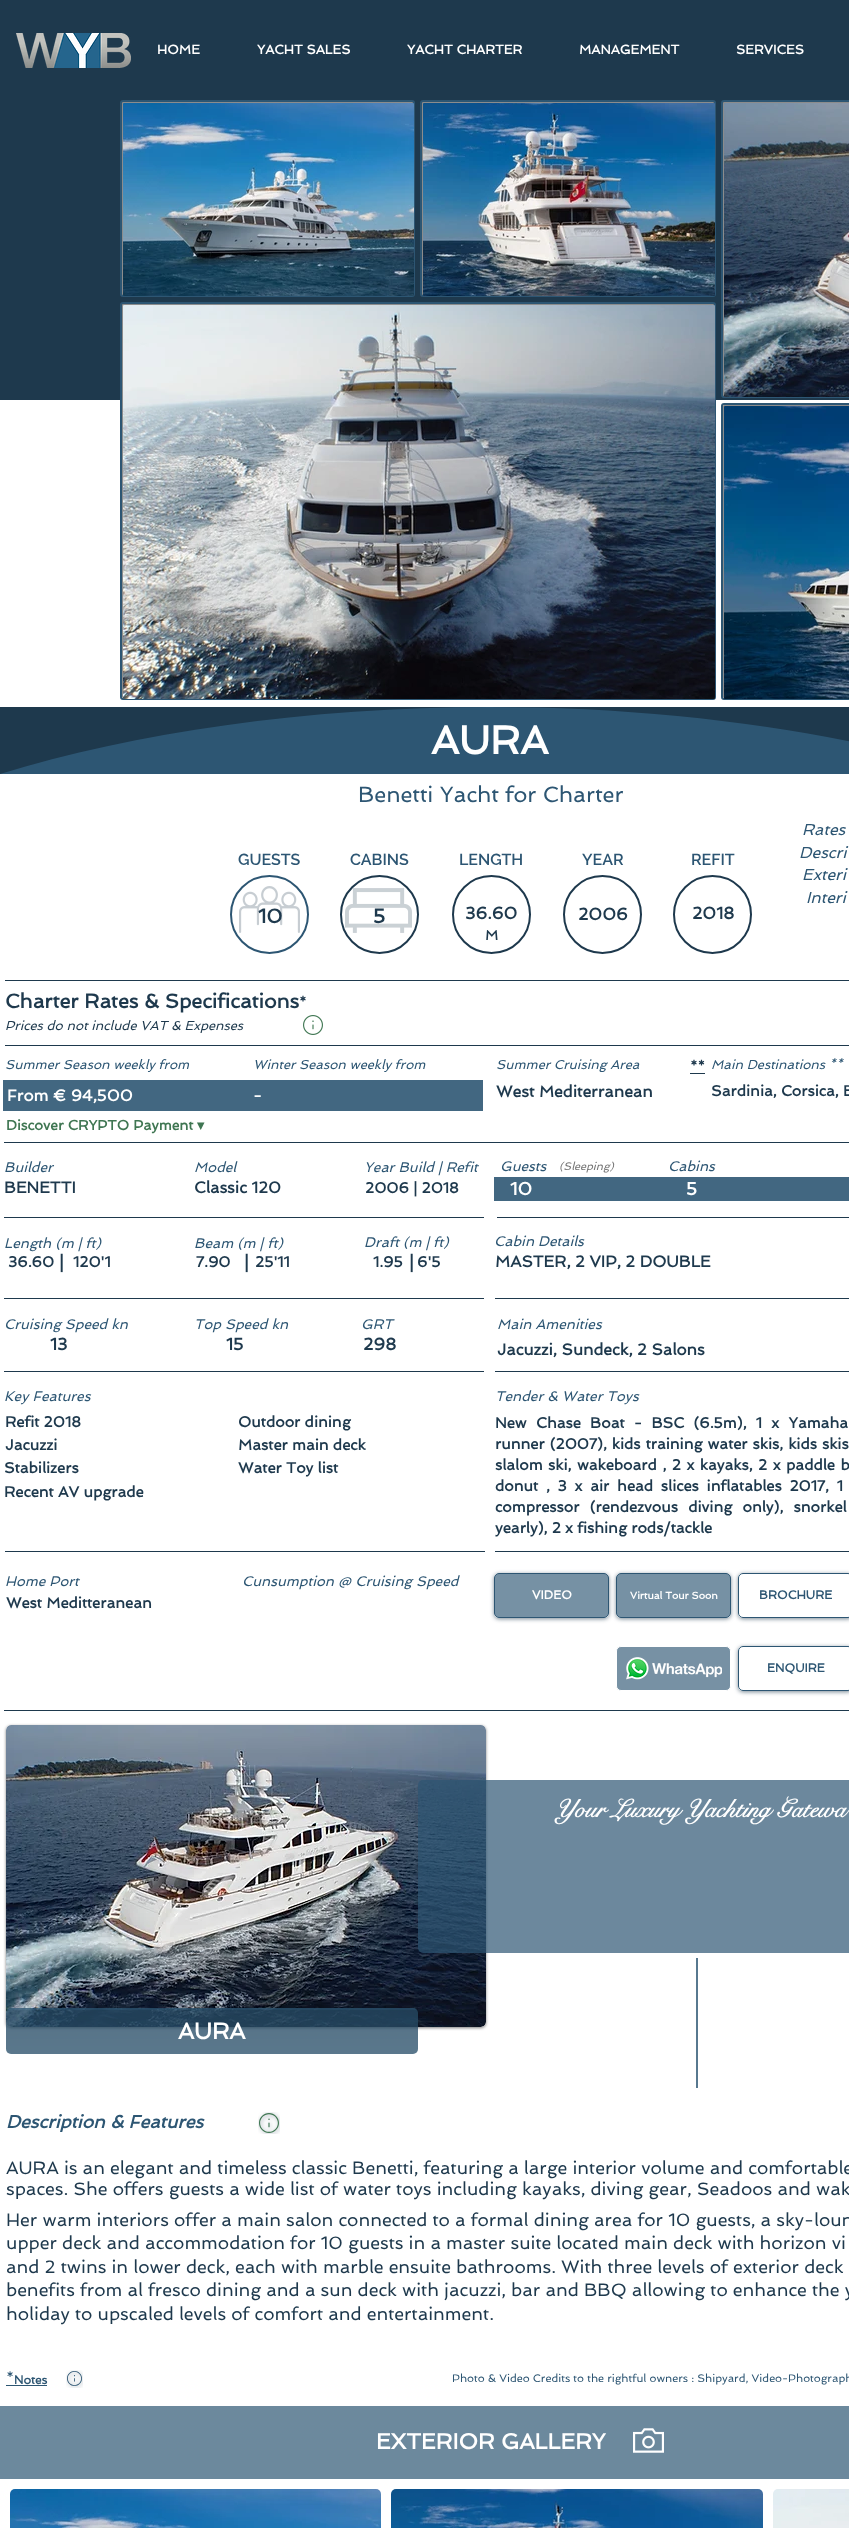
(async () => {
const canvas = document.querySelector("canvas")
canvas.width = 849
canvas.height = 2528
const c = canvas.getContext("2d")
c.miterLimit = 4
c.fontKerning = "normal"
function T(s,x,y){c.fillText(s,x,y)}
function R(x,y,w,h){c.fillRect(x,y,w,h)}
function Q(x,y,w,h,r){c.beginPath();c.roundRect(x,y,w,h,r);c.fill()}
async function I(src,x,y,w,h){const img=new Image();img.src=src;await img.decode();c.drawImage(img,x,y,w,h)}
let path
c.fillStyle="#fff"
R(0,0,849,2528)
c.fillStyle="#1e394d"
R(0,0,849,400)
await I("1.png",16,33,115,35)
c.font="bold 13px Spinnaker"
c.fillStyle="#fff"
T("HOME",157,54)
T("YACHT SALES",257,54)
T("YACHT CHARTER",407,54)
T("MANAGEMENT",579,54)
T("SERVICES",736,54)
c.beginPath()
c.roundRect(121,101,293,195,2)
c.strokeStyle="#2d5673"
c.lineWidth=2
c.stroke()
c.fillStyle="#8c8c8c"
Q(122,102,291,193,1)
await I("2.png",123,103,291,193)
c.beginPath()
c.roundRect(421,101,294,195,2)
c.stroke()
Q(422,102,292,193,1)
await I("3.png",423,103,292,193)
c.beginPath()
c.roundRect(121,303,594,396,2)
c.stroke()
Q(122,304,592,394,1)
await I("4.png",123,305,592,394)
c.beginPath()
c.roundRect(722,101,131,296,2)
c.stroke()
path = new Path2D("M724 102h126v294h-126c-.5 0-1-.5-1-1v-292c0-.5 .5-1 1-1z")
c.fill(path)
await I("5.png",724,103,125,294)
c.beginPath()
c.roundRect(722,404,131,295,2)
c.stroke()
path = new Path2D("M724 405h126v293h-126c-.5 0-1-.5-1-1v-291c0-.5 .5-1 1-1z")
c.fill(path)
await I("6.png",724,406,125,293)
c.fillStyle="#2d5673"
R(0,707,849,67)
c.fillStyle="#1e394d"
path = new Path2D("M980 774c-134-41-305-67-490-67c-185 0-356 26-490 67v3h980zm-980-67h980v70h-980z")
c.fill(path,"evenodd")
c.font="bold 40px Spinnaker"
c.fillStyle="#fff"
T("AURA",431,754)
c.font="22px Spinnaker"
c.fillStyle="#2d5673"
T("Benetti Yacht for Charter",358,802)
c.font="600 16px Raleway"
T("GUESTS",238,865)
T("CABINS",350,865)
T("LENGTH",459,865)
T("YEAR",582,865)
T("REFIT",691,865)
c.font="italic 16px Spinnaker"
T("Rates",802,835)
T("Descri",799,858)
T("Exteri",802,880)
T("Interi",806,903)
path = new Path2D("M308 914.5c0 21.5-17 38.5-38.5 38.5c-21.5 0-38.5-17-38.5-38.5c0-21.5 17-38.5 38.5-38.5c21.5 0 38.5 17 38.5 38.5z")
c.stroke(path)
path = new Path2D("M418 914.5c0 21.5-17 38.5-38.5 38.5c-21.5 0-38.5-17-38.5-38.5c0-21.5 17-38.5 38.5-38.5c21.5 0 38.5 17 38.5 38.5z")
c.strokeStyle="#1e394d"
c.stroke(path)
path = new Path2D("M530 914.5c0 21.5-17 38.5-38.5 38.5c-21.5 0-38.5-17-38.5-38.5c0-21.5 17-38.5 38.5-38.5c21.5 0 38.5 17 38.5 38.5z")
c.stroke(path)
path = new Path2D("M641 914.5c0 21.5-17 38.5-38.5 38.5c-21.5 0-38.5-17-38.5-38.5c0-21.5 17-38.5 38.5-38.5c21.5 0 38.5 17 38.5 38.5z")
c.stroke(path)
path = new Path2D("M751 914.5c0 21.5-17 38.5-38.5 38.5c-21.5 0-38.5-17-38.5-38.5c0-21.5 17-38.5 38.5-38.5c21.5 0 38.5 17 38.5 38.5z")
c.stroke(path)
c.font="bold 20px Spinnaker"
c.fillStyle="#1e394d"
T("10",258,923)
await I("7.png",239,886,61,47)
T("5",373,923)
await I("8.png",345,888,67,45)
c.font="bold 17px Spinnaker"
T("36.60",465,919)
T("2006",578,920)
T("2018",692,919)
c.font="bold 14px Spinnaker"
T("M",485,940)
R(5,980,844,1)
c.font="bold 20px Spinnaker"
T("Charter Rates & Specifications",5,1008)
c.font="bold 14px Spinnaker"
T("*",299,1008)
R(5,1045,844,1)
c.font="italic 13px Spinnaker"
T("Prices do not include VAT & Expenses",5,1030)
await I("9.png",303,1015,20,20)
c.fillStyle="#2d5673"
T("Summer Season weekly from",5,1069)
c.fillStyle="#426781"
R(3,1080,480,31)
c.font="bold 16px Spinnaker"
c.fillStyle="#fff"
T("From € 94,500",7,1101)
c.font="italic 13px Spinnaker"
c.fillStyle="#2d5673"
T("Winter Season weekly from",253,1069)
c.font="bold 16px Spinnaker"
c.fillStyle="#fff"
T("-",253,1101)
c.font="italic 13px Spinnaker"
c.fillStyle="#2d5673"
T("Summer Cruising Area",496,1069)
c.font="bold 14px Spinnaker"
c.fillStyle="#1e394d"
T("**",690,1072)
R(690,1073,15,1)
c.font="italic 13px Spinnaker"
c.fillStyle="#2d5673"
T("Main Destinations **",711,1069)
c.font="bold 15px Spinnaker"
c.fillStyle="#1e394d"
T("Sardinia, Corsica, B",711,1096)
c.font="bold 16px Spinnaker"
T("West Mediterranean",496,1097)
c.font="bold 14px Spinnaker"
c.fillStyle="#3f7652"
T("Discover CRYPTO Payment",6,1130)
c.font="bold 14px DejaVu Sans"
T("▾",197,1130)
c.font="italic 14px Spinnaker"
c.fillStyle="#2d5673"
T("Guests",500,1171)
c.font="italic 11px Spinnaker"
c.fillStyle="#747474"
T("(Sleeping)",559,1170)
c.font="italic 14px Spinnaker"
c.fillStyle="#2d5673"
T("Cabins",668,1171)
c.fillStyle="#426781"
R(494,1177,355,24)
c.font="bold 18px Spinnaker"
c.fillStyle="#fff"
T("10",510,1195)
T("5",686,1195)
c.fillStyle="#1e394d"
R(497,1217,352,1)
c.font="italic 14px Spinnaker"
c.fillStyle="#2d5673"
T("Cabin Details",494,1246)
c.font="bold 16px Spinnaker"
c.fillStyle="#1e394d"
T("MASTER, 2 VIP, 2 DOUBLE",495,1267)
R(4,1298,480,1)
c.font="italic 14px Spinnaker"
c.fillStyle="#2d5673"
T("Cruising Speed kn",4,1329)
T("Top Speed kn",194,1329)
T("GRT",361,1329)
c.font="bold 17px Spinnaker"
c.fillStyle="#1e394d"
T("13",50,1350)
T("15",226,1350)
T("298",363,1350)
R(495,1298,354,1)
c.font="italic 14px Spinnaker"
c.fillStyle="#2d5673"
T("Main Amenities",497,1329)
c.font="bold 16px Spinnaker"
c.fillStyle="#1e394d"
T("Jacuzzi, Sundeck, 2 Salons",497,1355)
R(4,1371,480,1)
R(495,1371,354,1)
c.font="italic 14px Spinnaker"
c.fillStyle="#2d5673"
T("Key Features",4,1401)
T("Tender & Water Toys",495,1401)
c.font="bold 15px Spinnaker"
c.fillStyle="#1e394d"
T("Refit 2018",5,1427)
T("Outdoor dining",238,1427)
c.wordSpacing="5px"
T("New Chase Boat - BSC (6.5m), 1 x Yamaha",495,1428)
c.wordSpacing="0.75px"
T("runner (2007), kids training water skis, kids skis",495,1449)
c.wordSpacing="1.25px"
T("slalom ski, wakeboard , 2 x kayaks, 2 x paddle b",495,1470)
c.wordSpacing="3.5px"
T("donut , 3 x air head slices inflatables 2017, 1",495,1491)
c.wordSpacing="6px"
T("compressor (rendezvous diving only), snorkel",495,1512)
c.wordSpacing="0px"
T("yearly), 2 x fishing rods/tackle",495,1533)
T("Jacuzzi",5,1450)
T("Master main deck",238,1450)
T("Stabilizers",4,1473)
T("Water Toy list",238,1473)
T("Recent AV upgrade",4,1497)
R(5,1551,480,1)
R(495,1551,354,1)
c.font="italic 14px Spinnaker"
c.fillStyle="#2d5673"
T("Home Port",5,1586)
c.font="bold 15px Spinnaker"
c.fillStyle="#1e394d"
T("West Meditteranean",6,1608)
c.font="italic 14px Spinnaker"
c.fillStyle="#2d5673"
T("Cunsumption @ Cruising Speed",242,1586)
c.save()
path = new Path2D("M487 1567h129v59h-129zm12 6h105c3 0 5 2 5 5v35c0 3-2 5-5 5h-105c-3 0-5-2-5-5v-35c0-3 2-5 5-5z")
c.clip(path,"evenodd")
c.fillStyle="#1e394d99"
c.filter="blur(2px)"
c.beginPath()
c.roundRect(494,1574,115,45,5)
c.fill()
c.filter="none"
c.restore()
c.fillStyle="#2d5673a6"
c.beginPath()
c.roundRect(494.5,1573.5,114,44,4.5)
c.fill()
c.strokeStyle="#2d5673"
c.lineWidth=1
c.stroke()
c.font="bold 12px Spinnaker"
c.fillStyle="#fff"
T("VIDEO",532,1599)
c.save()
path = new Path2D("M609 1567h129v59h-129zm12 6h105c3 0 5 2 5 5v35c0 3-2 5-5 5h-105c-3 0-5-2-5-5v-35c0-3 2-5 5-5z")
c.clip(path,"evenodd")
c.fillStyle="#1e394d99"
c.filter="blur(2px)"
c.beginPath()
c.roundRect(616,1574,115,45,5)
c.fill()
c.filter="none"
c.restore()
c.fillStyle="#2d5673a6"
c.beginPath()
c.roundRect(616.5,1573.5,114,44,4.5)
c.fill()
c.stroke()
c.font="bold 10px Spinnaker"
c.fillStyle="#fff"
T("Virtual Tour Soon",630,1599)
c.save()
path = new Path2D("M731 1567h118v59h-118zm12 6h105c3 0 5 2 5 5v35c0 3-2 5-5 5h-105c-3 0-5-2-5-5v-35c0-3 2-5 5-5z")
c.clip(path,"evenodd")
c.fillStyle="#1e394d99"
c.filter="blur(2px)"
c.beginPath()
c.roundRect(738,1574,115,45,5)
c.fill()
c.filter="none"
c.restore()
c.beginPath()
c.roundRect(738.5,1573.5,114,44,4.5)
c.stroke()
c.font="bold 12px Spinnaker"
c.fillStyle="#2d5673"
T("BROCHURE",759,1599)
c.fillStyle="#7791a4"
c.beginPath()
c.roundRect(616.5,1646.5,114,44,4.5)
c.fill()
c.strokeStyle="#fff"
c.stroke()
await I("10.png",626,1657,96,23)
c.save()
path = new Path2D("M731 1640h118v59h-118zm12 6h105c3 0 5 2 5 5v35c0 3-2 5-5 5h-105c-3 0-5-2-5-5v-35c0-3 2-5 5-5z")
c.clip(path,"evenodd")
c.fillStyle="#1e394d99"
c.filter="blur(2px)"
c.beginPath()
c.roundRect(738,1647,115,45,5)
c.fill()
c.filter="none"
c.restore()
c.beginPath()
c.roundRect(738.5,1646.5,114,44,4.5)
c.strokeStyle="#2d5673"
c.stroke()
c.fillStyle="#2d5673"
T("ENQUIRE",767,1672)
c.fillStyle="#1e394d"
R(4,1710,845,1)
c.fillStyle="#00000080"
c.filter="blur(1.5px)"
c.beginPath()
c.roundRect(6,1726,480,302,5)
c.fill()
c.filter="none"
c.fillStyle="#fff"
Q(6,1725,480,302,5)
await I("11.png",6,1725,480,302)
c.fillStyle="#2d5673b3"
Q(418,1780,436,173,5)
c.font="bold 25px 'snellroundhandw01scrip'"
c.fillStyle="#fff"
T("Your Luxury Yachting Gatewa",555,1817)
c.fillStyle="#2d5673c2"
Q(6,2008,412,46,5)
await I("12.png",6,2010,412,44)
c.font="bold 23px Spinnaker"
c.fillStyle="#fff"
T("AURA",178,2039)
c.fillStyle="#57788f"
R(696,1958,2,130)
c.fillStyle="#1e394d"
R(4,1142,845,1)
c.font="italic 14px Spinnaker"
c.fillStyle="#2d5673"
T("Builder",4,1172)
T("Model",194,1172)
T("Year Build | Refit",364,1172)
c.font="bold 16px Spinnaker"
c.fillStyle="#1e394d"
T("BENETTI",4,1193)
T("Classic 120",194,1193)
c.font="bold 15px Spinnaker"
T("2006 | 2018",365,1193)
R(4,1217,480,1)
c.font="italic 14px Spinnaker"
c.fillStyle="#2d5673"
T("Length (m | ft)",4,1248)
T("Beam (m | ft)",194,1248)
T("Draft (m | ft)",364,1247)
c.font="bold 15px Spinnaker"
c.fillStyle="#1e394d"
T("36.60",8,1267)
c.font="bold 18px Spinnaker"
T("|",59,1268)
c.font="bold 15px Spinnaker"
T("120'1",73,1267)
T("7.90",196,1267)
c.font="bold 18px Spinnaker"
T("|",244,1268)
c.font="bold 15px Spinnaker"
T("25'11",255,1267)
T("1.95",373,1267)
c.font="bold 18px Spinnaker"
T("|",409,1268)
c.font="bold 15px Spinnaker"
T("6'5",417,1267)
c.font="italic bold 18px Spinnaker"
c.fillStyle="#2d5673"
T("Description & Features",6,2128)
await I("13.png",258,2112,22,22)
c.font="18px Spinnaker"
c.fillStyle="#1e394d"
T("AURA is an elegant and timeless classic Benetti, featuring a large interior volume and comfortable",6,2174)
T("spaces. She offers guests a wide list of water toys including kayaks, diving gear, Seadoos and wak",6,2195)
T("Her warm interiors offer a main salon connected to a formal dining area for 10 guests, a sky-loun",6,2226)
T("upper deck and accommodation for 10 guests in a master suite located main deck with horizon vi",6,2249)
T("and 2 twins in lower deck, each with marble ensuite bathrooms. With three levels of exterior deck",6,2273)
T("benefits from al fresco dining and a sun deck with jacuzzi, bar and BBQ allowing to enhance the y",6,2296)
T("holiday to upscaled levels of comfort and entertainment.",6,2320)
c.font="15px Spinnaker"
c.fillStyle="#2d5673"
T("*",6,2384)
c.font="bold 12px Spinnaker"
T("Notes",14,2384)
R(6,2385,41,1)
await I("14.png",66,2370,17,18)
c.font="11px Spinnaker"
T("Photo & Video Credits to the rightful owners : Shipyard, Video-Photograph",452,2382)
c.fillStyle="#6c899d"
R(0,2406,849,73)
c.font="bold 22px Spinnaker"
c.fillStyle="#fff"
T("EXTERIOR GALLERY",376,2449)
await I("15.png",633,2428,31,25)
await I("16.png",10,2489,371,39)
await I("17.png",391,2489,372,39)
await I("18.png",773,2489,76,39)
})()
